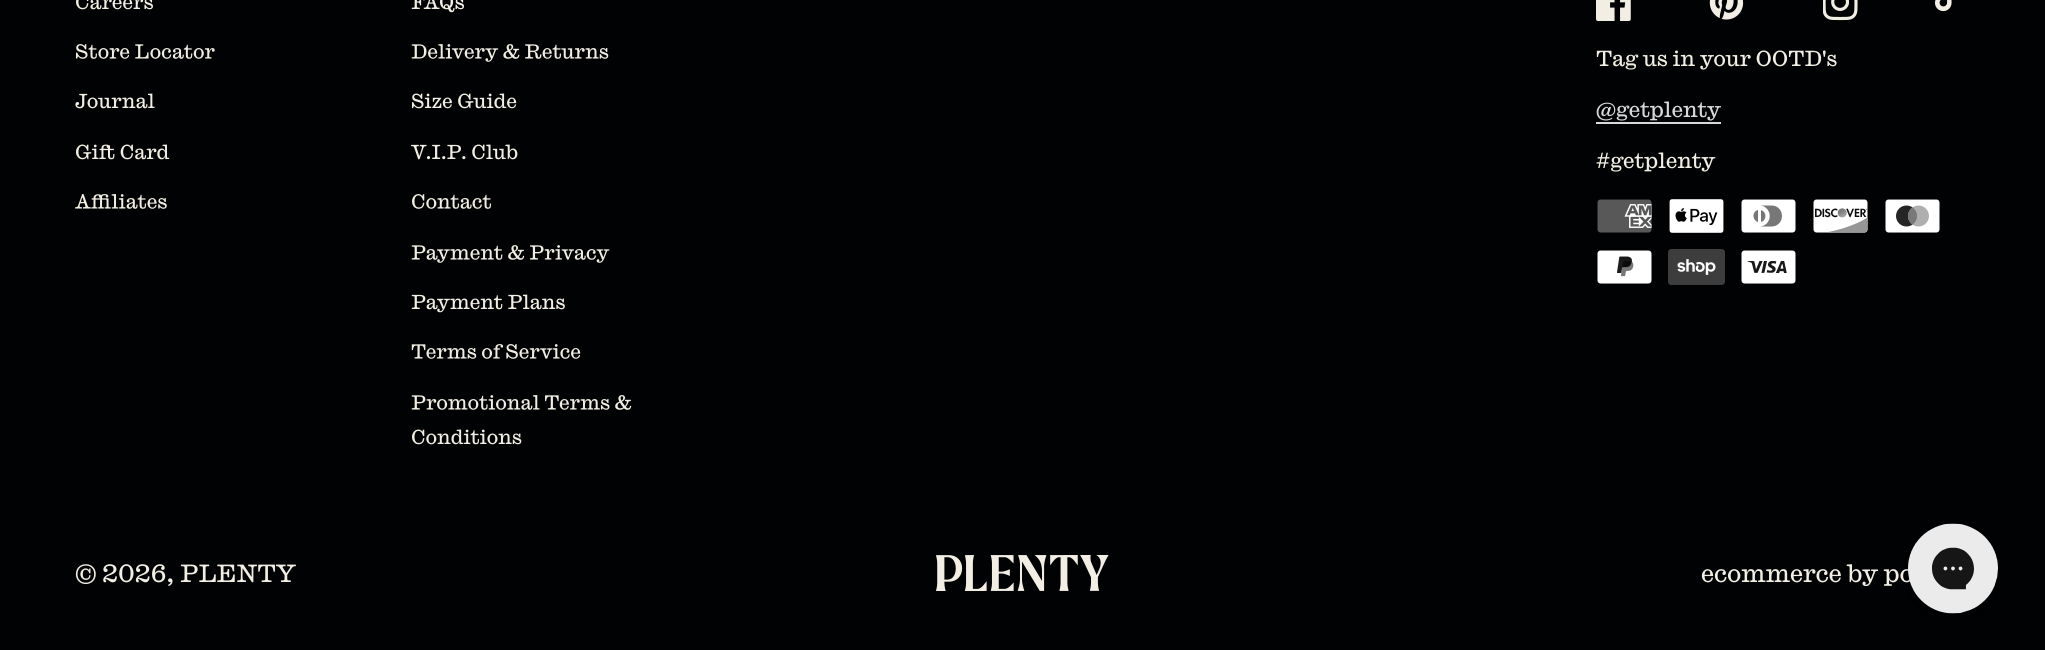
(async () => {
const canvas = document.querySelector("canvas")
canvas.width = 2045
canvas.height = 650
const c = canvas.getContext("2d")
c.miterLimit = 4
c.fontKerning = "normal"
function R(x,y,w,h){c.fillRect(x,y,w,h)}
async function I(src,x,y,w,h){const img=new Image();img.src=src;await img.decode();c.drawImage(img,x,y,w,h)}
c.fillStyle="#010203"
R(0,0,2045,650)
await I("1.png",76,0,77,10)
await I("2.png",75,44,140,15)
await I("3.png",75,93,80,16)
await I("4.png",76,144,94,16)
await I("5.png",75,194,92,15)
await I("6.png",411,0,54,13)
await I("7.png",411,44,198,18)
await I("8.png",411,93,106,16)
await I("9.png",411,144,107,16)
await I("10.png",412,194,79,15)
await I("11.png",411,245,199,18)
await I("12.png",411,294,154,19)
await I("13.png",411,344,170,15)
await I("14.png",411,395,221,15)
await I("15.png",412,429,110,16)
await I("16.png",1596,0,35,21)
await I("17.png",1709,0,35,20)
await I("18.png",1823,0,35,21)
await I("19.png",1935,0,17,12)
await I("20.png",1596,50,241,20)
await I("21.png",1596,101,125,20)
c.fillStyle="#d9d9d9"
R(1596,122,125,2)
await I("22.png",1596,152,120,20)
await I("23.png",1597,199,55,34)
await I("24.png",1669,199,55,34)
await I("25.png",1741,199,55,34)
await I("26.png",1813,199,55,34)
await I("27.png",1885,199,55,34)
await I("28.png",1597,250,55,34)
await I("29.png",1668,249,57,36)
await I("30.png",1741,250,55,34)
await I("31.png",75,564,98,23)
await I("32.png",180,564,116,19)
await I("33.png",936,555,173,36)
await I("34.png",1701,564,210,23)
await I("35.png",1905,523,93,91)
})()
